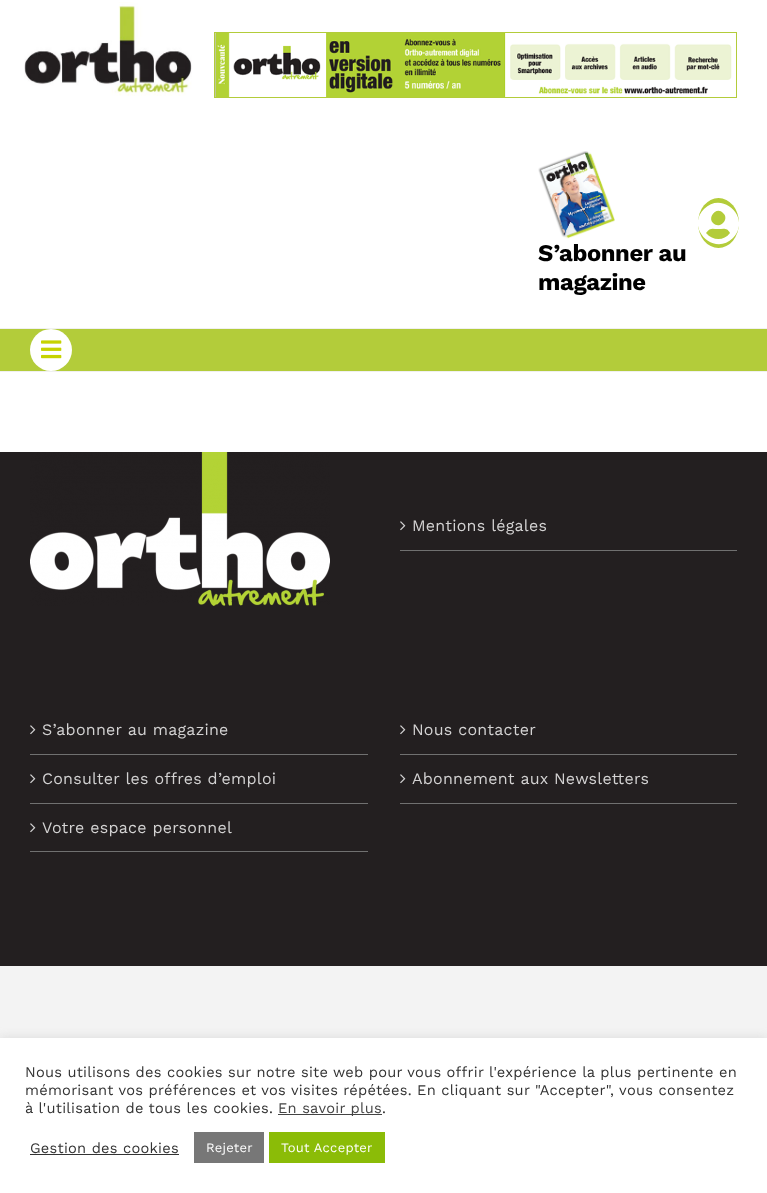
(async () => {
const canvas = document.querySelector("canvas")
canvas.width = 767
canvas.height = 1193
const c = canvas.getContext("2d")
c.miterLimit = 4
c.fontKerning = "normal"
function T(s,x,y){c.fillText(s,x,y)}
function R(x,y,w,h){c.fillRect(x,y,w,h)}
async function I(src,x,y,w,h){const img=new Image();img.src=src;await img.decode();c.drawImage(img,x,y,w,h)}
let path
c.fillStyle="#f3f3f3"
R(0,0,767,1193)
c.fillStyle="#fff"
R(0,0,767,328)
await I("1.png",24,2,168,94)
c.strokeStyle="#b3cc3a"
c.strokeRect(214.5,32.5,522,65)
await I("2.png",215,33,517,64)
c.fillStyle="#b3cc3a"
c.beginPath()
c.ellipse(718.5,223,20.5,25,0,0,7)
c.fill()
c.fillStyle="#fff"
path = new Path2D("M704 209c19-19 48 10 29 29c-19 19-48-10-29-29zm19 4c-6-7-16 4-10 10c7 7 17-4 10-10zm-17 20c7 8 18 8 24 0c-3-6-7-4-12-4c-5 0-8-2-12 4z")
c.fill(path)
await I("3.png",538,151,77,88)
c.letterSpacing="-0.4px"
c.font="bold 23.75px Work Sans"
c.fillStyle="#000"
T("S’abonner au",538,261)
T("magazine",538,290)
c.fillStyle="#b3cc3a"
R(0,329,767,42)
c.fillStyle="#f0f0f0"
R(0,328,767,1)
R(0,371,767,1)
c.fillStyle="#fff"
c.beginPath()
c.arc(51,350,21,0,7)
c.fill()
await I("4.png",41,340,21,19)
R(0,372,767,80)
c.fillStyle="#231f20"
R(0,452,767,514)
await I("5.png",30,452,300,154)
c.fillStyle="#707070"
R(400,550,337,1)
await I("6.png",400,521,6,10)
c.letterSpacing="0.25px"
c.font="16px Work Sans"
c.fillStyle="#d3d2d2"
T("Mentions légales",412,531)
c.fillStyle="#707070"
R(30,754,338,1)
await I("6.png",30,725,6,10)
c.fillStyle="#d3d2d2"
T("S’abonner au magazine",42,735)
c.fillStyle="#707070"
R(30,803,338,1)
await I("6.png",30,774,6,10)
c.fillStyle="#d3d2d2"
T("Consulter les offres d’emploi",42,784)
c.fillStyle="#707070"
R(30,851,338,1)
await I("6.png",30,823,6,10)
c.fillStyle="#d3d2d2"
T("Votre espace personnel",42,833)
c.fillStyle="#707070"
R(400,754,337,1)
await I("6.png",400,725,6,10)
c.fillStyle="#d3d2d2"
T("Nous contacter",412,735)
c.fillStyle="#707070"
R(400,803,337,1)
await I("6.png",400,774,6,10)
c.fillStyle="#d3d2d2"
T("Abonnement aux Newsletters",412,784)
c.fillStyle="#acabab4d"
c.filter="blur(5px)"
c.beginPath()
c.rect(0,1037,767,155)
c.fill()
c.filter="none"
c.fillStyle="#fff"
R(0,1038,767,155)
c.font="14.65px Work Sans"
c.fillStyle="#333"
T("Nous utilisons des cookies sur notre site web pour vous offrir l'expérience la plus pertinente en",25,1077)
T("mémorisant vos préférences et vos visites répétées. En cliquant sur \"Accepter\", vous consentez",25,1095)
T("à l'utilisation de tous les cookies.",25,1113)
c.fillStyle="#444"
R(278,1114,104,1)
T("En savoir plus",278,1113)
c.fillStyle="#333"
T(".",382,1113)
T("Gestion des cookies",30,1153)
R(30,1154,149,1)
c.fillStyle="#777"
R(194,1132,70,31)
c.font="13px Work Sans"
c.fillStyle="#fff"
T("Rejeter",206,1152)
c.fillStyle="#8bbc07"
R(269,1132,116,31)
c.fillStyle="#fff"
T("Tout Accepter",281,1152)
})()
